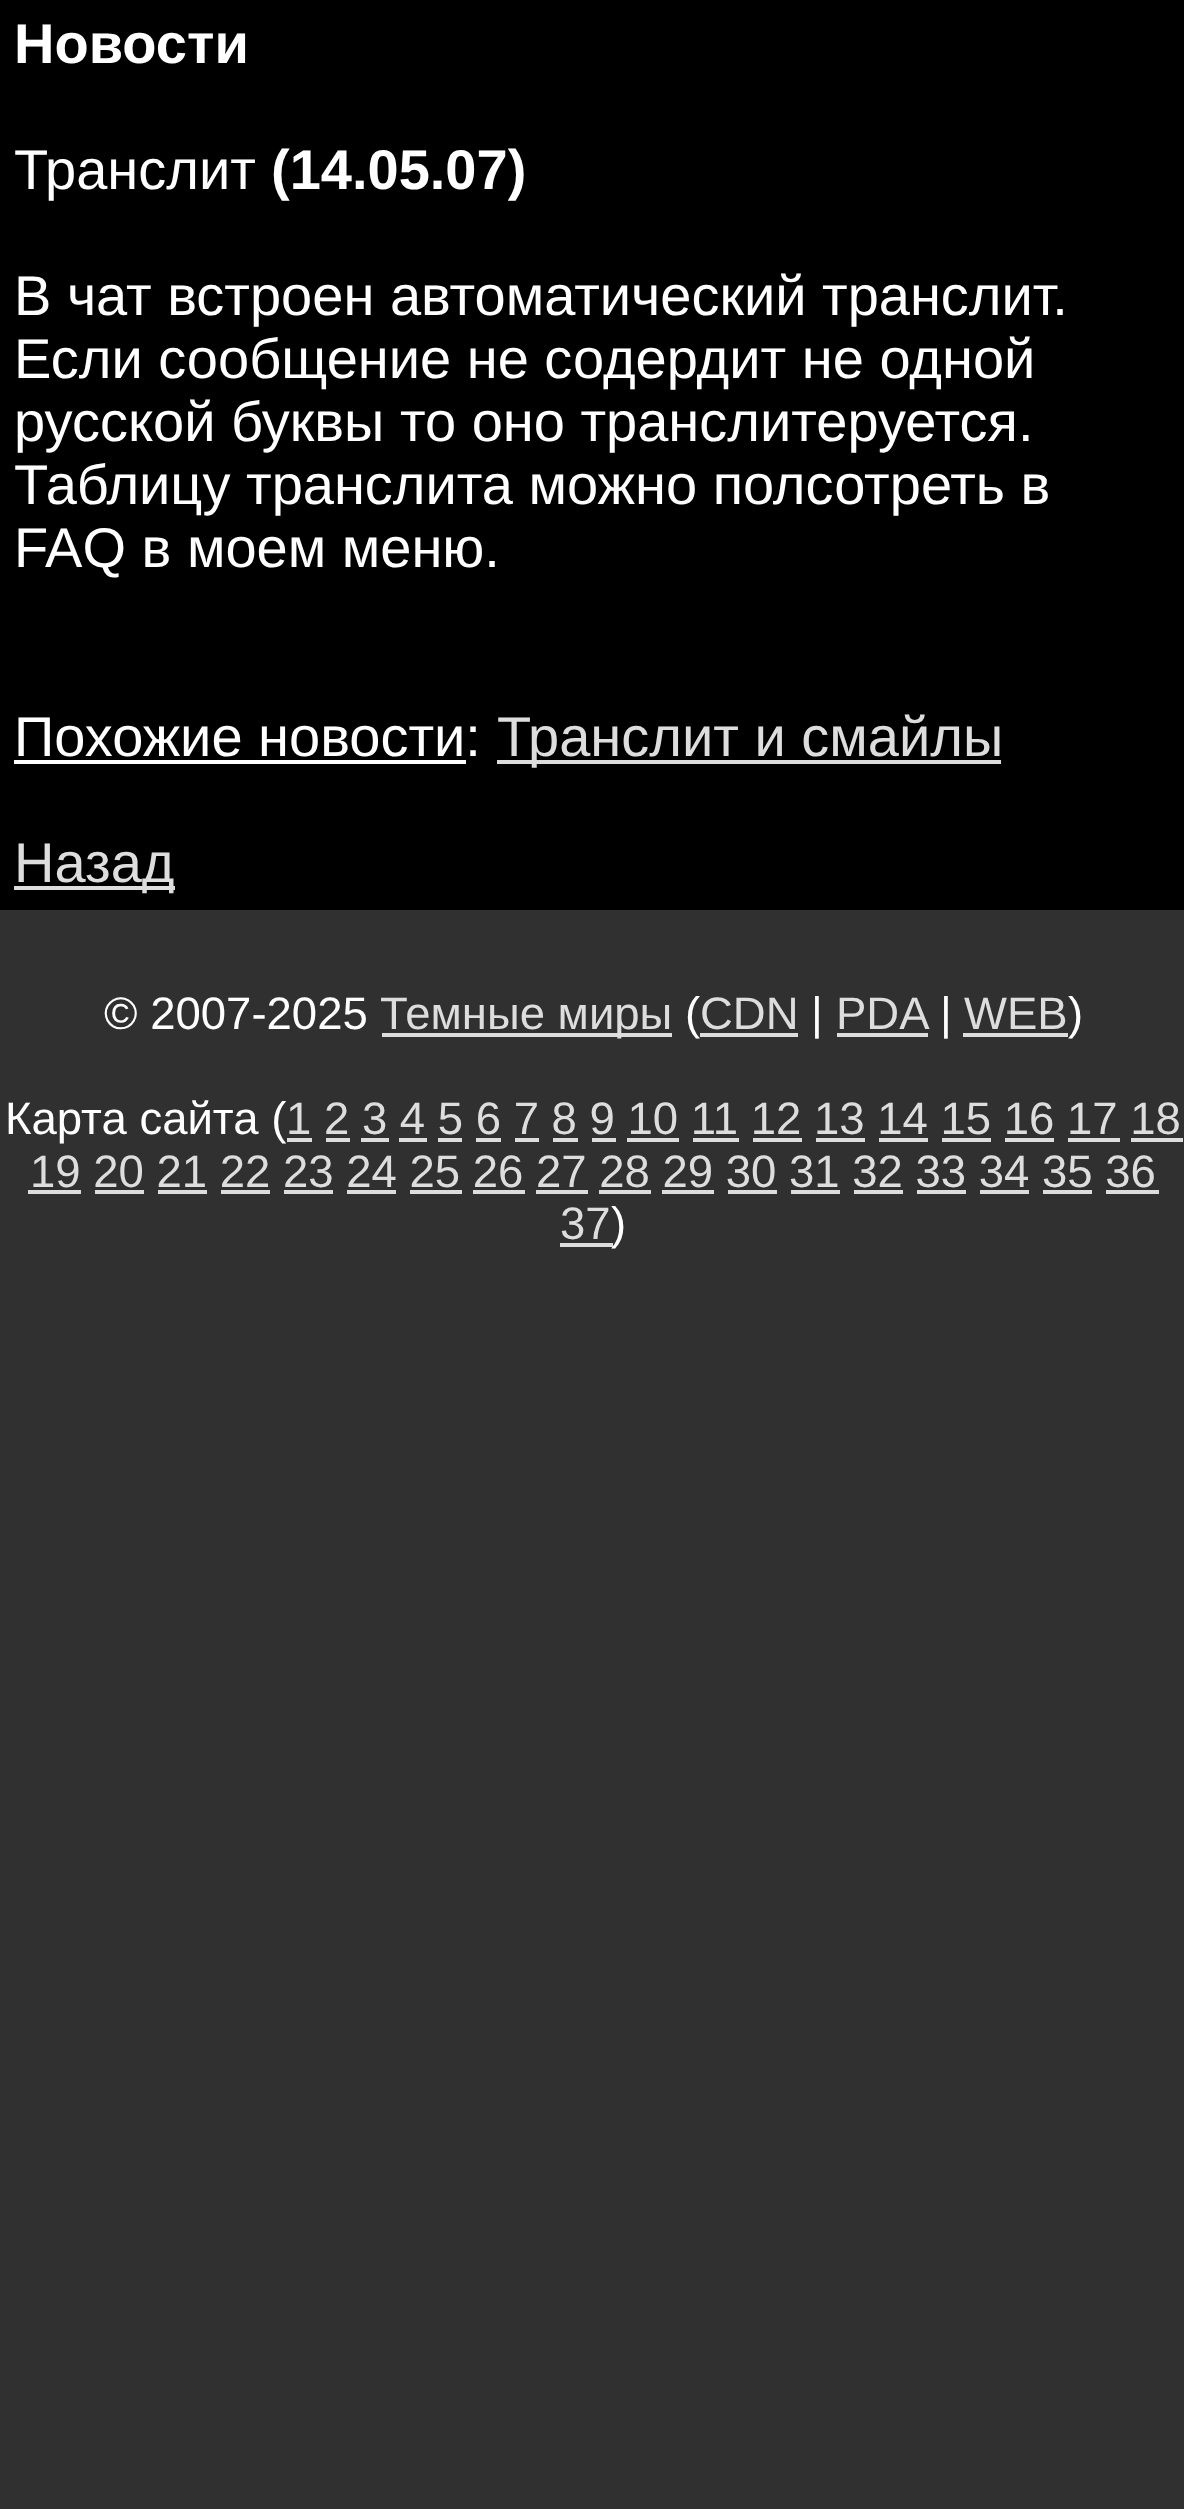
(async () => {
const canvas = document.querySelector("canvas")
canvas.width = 1184
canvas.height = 2509
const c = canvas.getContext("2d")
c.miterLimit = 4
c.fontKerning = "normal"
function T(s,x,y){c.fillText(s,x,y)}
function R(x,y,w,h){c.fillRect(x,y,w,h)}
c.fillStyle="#303030"
R(0,0,1184,2509)
c.fillStyle="#000"
R(0,0,1184,910)
c.font="bold 56px Liberation Sans"
c.fillStyle="#fff"
T("Новости",14,63)
c.font="56px Liberation Sans"
T("Транслит",14,189)
c.font="bold 56px Liberation Sans"
T("(14.05.07)",271,189)
c.font="56px Liberation Sans"
T("В чат встроен автоматический транслит.",14,315)
T("Если сообщение не содердит не одной",14,378)
T("русской буквы то оно транслитеруется.",14,441)
T("Таблицу транслита можно полсотреть в",14,504)
T("FAQ в моем меню.",14,567)
T("Похожие новости:",14,756)
R(14,760,452,4)
c.fillStyle="#ddd"
R(497,760,504,4)
T("Транслит и смайлы",497,756)
R(14,886,161,4)
T("Назад",14,882)
c.font="45.5px Liberation Sans"
c.fillStyle="#fff"
T("© 2007-2025",104,1029)
c.fillStyle="#ddd"
R(382,1033,290,4)
T("Темные миры",380,1029)
c.fillStyle="#fff"
T("(",685,1029)
c.fillStyle="#ddd"
T("CDN",700,1029)
R(700,1033,98,4)
c.fillStyle="#fff"
T("|",811,1029)
c.fillStyle="#ddd"
T("PDA",836,1029)
R(837,1033,91,4)
c.fillStyle="#fff"
T("|",940,1029)
c.fillStyle="#ddd"
T("WEB",964,1029)
R(963,1033,105,4)
c.fillStyle="#fff"
T(")",1068,1029)
T("Карта сайта (",5,1134)
c.fillStyle="#ddd"
T("1 2 3 4 5 6 7 8 9 10 11 12 13 14 15 16 17 18",286,1134)
R(287,1138,25,4)
R(326,1138,24,4)
R(361,1138,28,4)
R(399,1138,28,4)
R(438,1138,24,4)
R(476,1138,25,4)
R(515,1138,24,4)
R(553,1138,25,4)
R(592,1138,24,4)
R(627,1138,52,4)
R(693,1138,46,4)
R(753,1138,49,4)
R(816,1138,49,4)
R(879,1138,49,4)
R(942,1138,49,4)
R(1005,1138,49,4)
R(1068,1138,52,4)
R(1131,1138,52,4)
T("19 20 21 22 23 24 25 26 27 28 29 30 31 32 33 34 35 36",30,1187)
R(28,1190,53,4)
R(95,1190,49,4)
R(158,1190,49,4)
R(221,1190,49,4)
R(284,1190,49,4)
R(347,1190,49,4)
R(410,1190,52,4)
R(473,1190,52,4)
R(536,1190,52,4)
R(599,1190,52,4)
R(662,1190,52,4)
R(728,1190,49,4)
R(791,1190,49,4)
R(854,1190,49,4)
R(917,1190,49,4)
R(980,1190,49,4)
R(1043,1190,49,4)
R(1106,1190,53,4)
T("37",560,1239)
R(560,1243,53,4)
c.fillStyle="#fff"
T(")",611,1239)
})()
